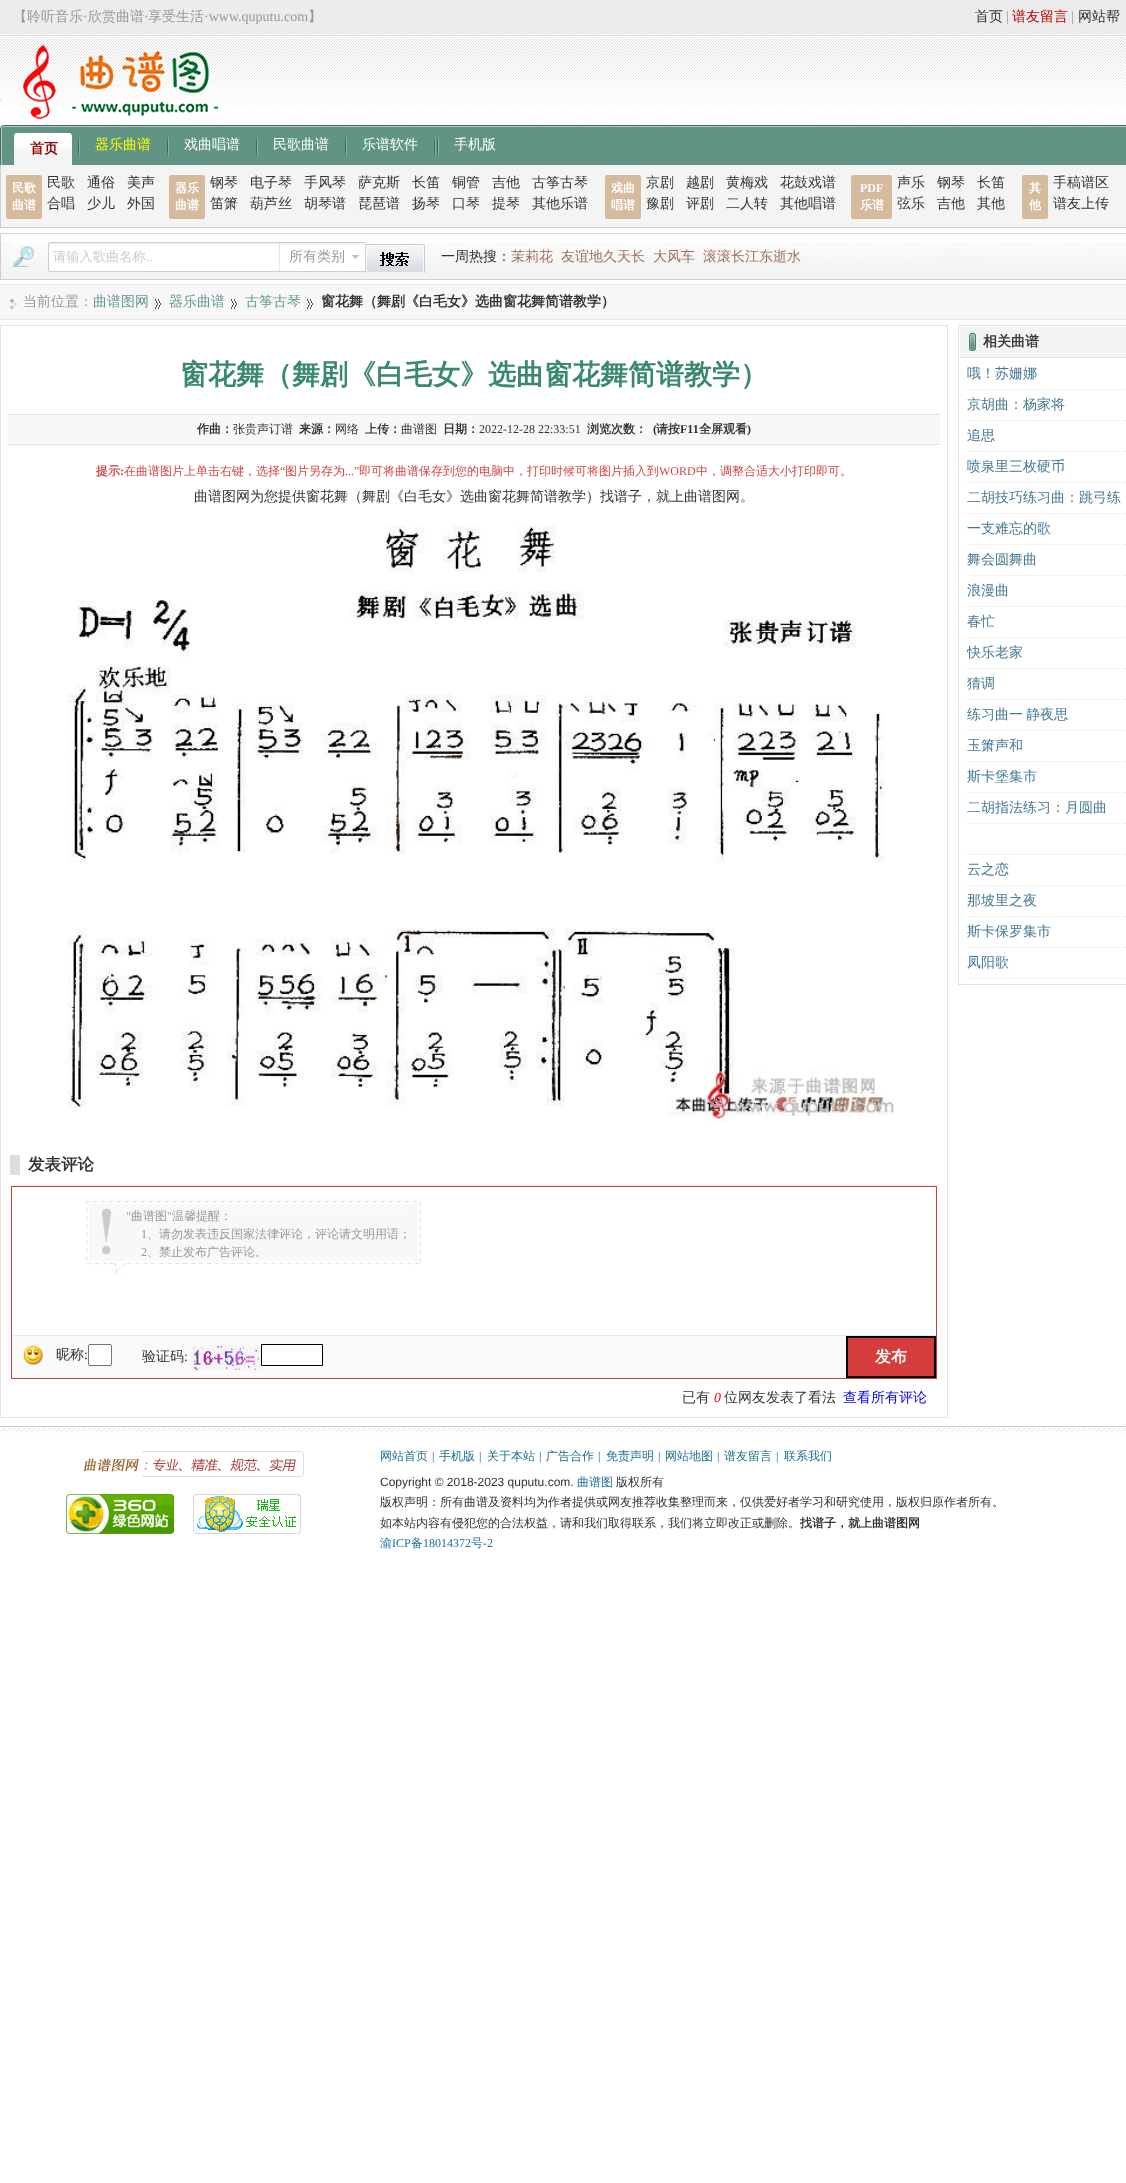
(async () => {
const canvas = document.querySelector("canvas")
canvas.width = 1126
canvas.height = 2183
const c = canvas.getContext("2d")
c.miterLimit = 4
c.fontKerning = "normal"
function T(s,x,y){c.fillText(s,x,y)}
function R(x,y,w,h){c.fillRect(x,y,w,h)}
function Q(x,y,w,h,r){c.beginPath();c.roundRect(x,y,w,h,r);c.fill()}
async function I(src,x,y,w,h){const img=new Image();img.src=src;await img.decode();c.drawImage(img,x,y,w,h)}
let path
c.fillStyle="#fff"
R(0,0,1126,2183)
await I("1.png",0,0,1126,109)
c.font="500 14px WenQuanYi Zen Hei"
c.fillStyle="#999"
T("【聆听音乐",13,21)
c.font="14px Liberation Serif"
T("·",83,21)
c.font="500 14px WenQuanYi Zen Hei"
T("欣赏曲谱",88,21)
c.font="14px Liberation Serif"
T("·",144,21)
c.font="500 14px WenQuanYi Zen Hei"
T("享受生活",148,21)
c.font="14px Liberation Serif"
T("·www.quputu.com",204,21)
c.font="500 14px WenQuanYi Zen Hei"
T("】",308,21)
c.fillStyle="#333"
T("首页",975,21)
c.font="14px Liberation Serif"
c.fillStyle="#999"
T("|",1006,21)
c.font="500 14px WenQuanYi Zen Hei"
c.fillStyle="#c10102"
T("谱友留言",1012,21)
c.font="14px Liberation Serif"
c.fillStyle="#999"
T("|",1071,21)
c.font="500 14px WenQuanYi Zen Hei"
c.fillStyle="#333"
T("网站帮",1078,21)
await I("2.png",0,45,218,74)
await I("3.png",4,125,1122,40)
await I("4.png",0,125,4,40)
await I("5.png",14,133,58,32)
c.font="bold 14px WenQuanYi Zen Hei"
c.fillStyle="#970102"
T("首页",30,153)
await I("6.png",78,135,2,24)
c.font="500 14px WenQuanYi Zen Hei"
c.fillStyle="#ff0"
T("器乐曲谱",95,149)
await I("6.png",167,135,2,24)
c.fillStyle="#fff"
T("戏曲唱谱",184,149)
await I("6.png",256,135,2,24)
T("民歌曲谱",273,149)
await I("6.png",345,135,2,24)
T("乐谱软件",362,149)
await I("6.png",434,135,2,24)
await I("6.png",437,135,2,24)
T("手机版",454,149)
c.fillStyle="#f4f4f4"
R(1,165,1125,62)
c.fillStyle="#cfcfcf"
R(0,227,1126,1)
R(0,165,1,63)
c.fillStyle="#d5ba9b"
Q(6,175,36,44,2)
c.font="bold 12px WenQuanYi Zen Hei"
c.fillStyle="#fff"
T("民歌",12,192)
T("曲谱",12,209)
c.font="500 14px WenQuanYi Zen Hei"
c.fillStyle="#333"
T("民歌",47,187)
T("通俗",87,187)
T("美声",127,187)
T("合唱",47,208)
T("少儿",87,208)
T("外国",127,208)
c.fillStyle="#d5ba9b"
Q(169,175,36,44,2)
c.font="bold 12px WenQuanYi Zen Hei"
c.fillStyle="#fff"
T("器乐",175,192)
T("曲谱",175,209)
c.font="500 14px WenQuanYi Zen Hei"
c.fillStyle="#333"
T("钢琴",210,187)
T("电子琴",250,187)
T("手风琴",304,187)
T("萨克斯",358,187)
T("长笛",412,187)
T("铜管",452,187)
T("吉他",492,187)
T("古筝古琴",532,187)
T("笛箫",210,208)
T("葫芦丝",250,208)
T("胡琴谱",304,208)
T("琵琶谱",358,208)
T("扬琴",412,208)
T("口琴",452,208)
T("提琴",492,208)
T("其他乐谱",532,208)
c.fillStyle="#d5ba9b"
Q(605,175,36,44,2)
c.font="bold 12px WenQuanYi Zen Hei"
c.fillStyle="#fff"
T("戏曲",611,192)
T("唱谱",611,209)
c.font="500 14px WenQuanYi Zen Hei"
c.fillStyle="#333"
T("京剧",646,187)
T("越剧",686,187)
T("黄梅戏",726,187)
T("花鼓戏谱",780,187)
T("豫剧",646,208)
T("评剧",686,208)
T("二人转",726,208)
T("其他唱谱",780,208)
c.fillStyle="#d5ba9b"
Q(851,175,41,44,2)
c.font="bold 12px Liberation Serif"
c.fillStyle="#fff"
T("PDF",860,192)
c.font="bold 12px WenQuanYi Zen Hei"
T("乐谱",860,209)
c.font="500 14px WenQuanYi Zen Hei"
c.fillStyle="#333"
T("声乐",897,187)
T("钢琴",937,187)
T("长笛",977,187)
T("弦乐",897,208)
T("吉他",937,208)
T("其他",977,208)
c.fillStyle="#d5ba9b"
Q(1022,175,26,44,2)
c.font="bold 12px WenQuanYi Zen Hei"
c.fillStyle="#fff"
T("其",1029,192)
T("他",1029,209)
c.font="500 14px WenQuanYi Zen Hei"
c.fillStyle="#333"
T("手稿谱区",1053,187)
T("谱友上传",1053,208)
await I("7.png",1,242,1125,37)
c.strokeStyle="#cfcfcf"
c.strokeRect(.5,233.5,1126,46)
await I("8.png",11,243,23,24)
await I("9.png",48,242,231,30)
c.font="500 13.25px WenQuanYi Zen Hei"
c.fillStyle="#ccc"
T("请输入歌曲名称",53,261)
c.font="13.25px Liberation Serif"
T("..",146,261)
await I("10.png",279,242,86,30)
c.font="500 14px WenQuanYi Zen Hei"
c.fillStyle="#999"
T("所有类别",289,261)
await I("11.png",365,244,60,29)
c.fillStyle="#333"
T("一周热搜：",441,261)
c.fillStyle="#a06e57"
T("茉莉花",511,261)
T("友谊地久天长",561,261)
T("大风车",653,261)
T("滚滚长江东逝水",703,261)
c.fillStyle="#f7f7f7"
R(0,285,1126,34)
c.fillStyle="#e7e7e7"
R(0,284,1126,1)
R(0,319,1126,1)
await I("12.png",9,298,9,12)
c.fillStyle="#999"
T("当前位置：",23,306)
c.fillStyle="#639894"
T("曲谱图网",93,306)
await I("13.png",155,299,6,10)
T("器乐曲谱",169,306)
await I("13.png",231,299,6,10)
T("古筝古琴",245,306)
await I("13.png",307,299,6,10)
c.font="bold 14px WenQuanYi Zen Hei"
c.fillStyle="#333"
T("窗花舞（舞剧《白毛女》选曲窗花舞简谱教学）",321,306)
c.strokeStyle="#e3e3e3"
c.strokeRect(.5,325.5,947,1092)
c.font="bold 28px WenQuanYi Zen Hei"
c.fillStyle="#3a896d"
T("窗花舞（舞剧《白毛女》选曲窗花舞简谱教学）",180,384)
c.fillStyle="#f8f8f8"
R(8,414,932,31)
path = new Path2D("M8 414.5h932")
c.strokeStyle="#ccc"
c.setLineDash([1,1])
c.stroke(path)
path = new Path2D("M8 444.5h932")
c.stroke(path)
c.font="bold 12px WenQuanYi Zen Hei"
c.fillStyle="#333"
T("作曲：",197,433)
c.font="500 12px WenQuanYi Zen Hei"
T("张贵声订谱",233,433)
c.font="bold 12px WenQuanYi Zen Hei"
T("来源：",299,433)
c.font="500 12px WenQuanYi Zen Hei"
T("网络",335,433)
c.font="bold 12px WenQuanYi Zen Hei"
T("上传：",365,433)
c.font="500 12px WenQuanYi Zen Hei"
T("曲谱图",401,433)
c.font="bold 12px WenQuanYi Zen Hei"
T("日期：",443,433)
c.font="12px Liberation Serif"
T("2022-12-28 22:33:51",479,433)
c.font="bold 12px WenQuanYi Zen Hei"
T("浏览次数：",587,433)
c.font="bold 12px Liberation Serif"
T("(",653,433)
c.font="bold 12px WenQuanYi Zen Hei"
T("请按",656,433)
c.font="bold 12px Liberation Serif"
T("F11",680,433)
c.font="bold 12px WenQuanYi Zen Hei"
T("全屏观看",699,433)
c.font="bold 12px Liberation Serif"
T(")",747,433)
c.font="bold 12px WenQuanYi Zen Hei"
c.fillStyle="#d24545"
T("提示",96,475)
c.font="bold 12px Liberation Serif"
T(":",120,475)
c.font="500 12px WenQuanYi Zen Hei"
T("在曲谱图片上单击右键，选择",124,475)
c.font="12px Liberation Serif"
T("“",280,475)
c.font="500 12px WenQuanYi Zen Hei"
T("图片另存为",285,475)
c.font="12px Liberation Serif"
T("...”",345,475)
c.font="500 12px WenQuanYi Zen Hei"
T("即可将曲谱保存到您的电脑中，打印时候可将图片插入到",359,475)
c.font="12px Liberation Serif"
T("WORD",659,475)
c.font="500 12px WenQuanYi Zen Hei"
T("中，调整合适大小打印即可。",696,475)
c.font="500 14px WenQuanYi Zen Hei"
c.fillStyle="#333"
T("曲谱图网为您提供窗花舞（舞剧《白毛女》选曲窗花舞简谱教学）找谱子，就上曲谱图网。",194,501)
await I("14.png",67,525,827,599)
c.fillStyle="#eee"
R(10,1185,928,1)
c.fillStyle="#ddd"
R(10,1155,10,20)
c.font="bold 16.5px WenQuanYi Zen Hei"
c.fillStyle="#333"
T("发表评论",28,1170)
c.strokeStyle="#d43d3d"
c.setLineDash([])
c.strokeRect(11.5,1186.5,925,192)
await I("15.png",86,1201,335,72)
c.font="12px Liberation Serif"
c.fillStyle="#999"
T("\"",126,1220)
c.font="500 12px WenQuanYi Zen Hei"
T("曲谱图",131,1220)
c.font="12px Liberation Serif"
T("\"",167,1220)
c.font="500 12px WenQuanYi Zen Hei"
T("温馨提醒：",172,1220)
c.font="12px Liberation Serif"
T("1",141,1238)
c.font="500 12px WenQuanYi Zen Hei"
T("、请勿发表违反国家法律评论，评论请文明用语；",147,1238)
c.font="12px Liberation Serif"
T("2",141,1256)
c.font="500 12px WenQuanYi Zen Hei"
T("、禁止发布广告评论。",147,1256)
c.fillStyle="#fafafa"
R(12,1336,834,42)
c.fillStyle="#e6eaed"
R(12,1335,924,1)
await I("16.png",23,1345,20,20)
c.font="500 14px WenQuanYi Zen Hei"
c.fillStyle="#333"
T("昵称",56,1359)
c.font="14px Liberation Serif"
T(":",84,1359)
c.fillStyle="#fff"
c.beginPath()
c.roundRect(88.5,1344.5,23,21,1.5)
c.fill()
c.strokeStyle="#767676"
c.stroke()
c.font="500 14px WenQuanYi Zen Hei"
c.fillStyle="#333"
T("验证码",142,1361)
c.font="14px Liberation Serif"
T(":",184,1361)
await I("17.png",191,1346,70,24)
c.fillStyle="#fff"
c.beginPath()
c.rect(261.5,1344.5,61,21)
c.fill()
c.strokeStyle="#000"
c.stroke()
c.fillStyle="#d43d3d"
c.beginPath()
c.rect(847,1337,88,40)
c.fill()
c.lineWidth=2
c.stroke()
c.font="bold 16px WenQuanYi Zen Hei"
c.fillStyle="#fff"
T("发布",875,1362)
c.font="500 14px WenQuanYi Zen Hei"
c.fillStyle="#333"
T("已有",682,1402)
c.font="italic 14px Liberation Serif"
c.fillStyle="#f00"
T("0",714,1402)
c.font="500 14px WenQuanYi Zen Hei"
c.fillStyle="#333"
T("位网友发表了看法",724,1402)
c.fillStyle="#00e"
T("查看所有评论",843,1402)
c.strokeStyle="#e1e1e1"
c.lineWidth=1
c.strokeRect(958.5,325.5,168,659)
c.fillStyle="#f3f3f3"
R(960,327,166,30)
await I("18.png",969,333,7,18)
c.fillStyle="#e1e1e1"
R(960,357,166,1)
c.font="bold 14px WenQuanYi Zen Hei"
c.fillStyle="#393939"
T("相关曲谱",983,346)
path = new Path2D("M967 389.5h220")
c.strokeStyle="#e6e6e6"
c.setLineDash([1,1])
c.stroke(path)
c.font="500 14px WenQuanYi Zen Hei"
c.fillStyle="#457893"
T("哦！苏姗娜",967,378)
path = new Path2D("M967 420.5h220")
c.stroke(path)
T("京胡曲：杨家将",967,409)
path = new Path2D("M967 451.5h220")
c.stroke(path)
T("追思",967,440)
path = new Path2D("M967 482.5h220")
c.stroke(path)
T("喷泉里三枚硬币",967,471)
path = new Path2D("M967 513.5h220")
c.stroke(path)
T("二胡技巧练习曲：跳弓练",967,502)
path = new Path2D("M967 544.5h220")
c.stroke(path)
T("一支难忘的歌",967,533)
path = new Path2D("M967 575.5h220")
c.stroke(path)
T("舞会圆舞曲",967,564)
path = new Path2D("M967 606.5h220")
c.stroke(path)
T("浪漫曲",967,595)
path = new Path2D("M967 637.5h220")
c.stroke(path)
T("春忙",967,626)
path = new Path2D("M967 668.5h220")
c.stroke(path)
T("快乐老家",967,657)
path = new Path2D("M967 699.5h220")
c.stroke(path)
T("猜调",967,688)
path = new Path2D("M967 730.5h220")
c.stroke(path)
c.wordSpacing="-1px"
T("练习曲一 静夜思",967,719)
path = new Path2D("M967 761.5h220")
c.stroke(path)
c.wordSpacing="0px"
T("玉箫声和",967,750)
path = new Path2D("M967 792.5h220")
c.stroke(path)
T("斯卡堡集市",967,781)
path = new Path2D("M967 823.5h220")
c.stroke(path)
T("二胡指法练习：月圆曲",967,812)
path = new Path2D("M967 854.5h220")
c.stroke(path)
path = new Path2D("M967 885.5h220")
c.stroke(path)
T("云之恋",967,874)
path = new Path2D("M967 916.5h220")
c.stroke(path)
T("那坡里之夜",967,905)
path = new Path2D("M967 947.5h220")
c.stroke(path)
T("斯卡保罗集市",967,936)
path = new Path2D("M967 978.5h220")
c.stroke(path)
T("凤阳歌",967,967)
await I("19.png",0,1426,1126,8)
await I("20.png",84,1451,220,26)
await I("21.png",66,1494,108,40)
await I("22.png",193,1494,108,40)
c.font="500 12px WenQuanYi Zen Hei"
c.fillStyle="#1e6e93"
T("网站首页",380,1460)
c.font="12px Liberation Serif"
c.fillStyle="#06c"
T("|",432,1460)
c.font="500 12px WenQuanYi Zen Hei"
c.fillStyle="#1e6e93"
T("手机版",439,1460)
c.font="12px Liberation Serif"
c.fillStyle="#06c"
T("|",479,1460)
c.font="500 12px WenQuanYi Zen Hei"
c.fillStyle="#1e6e93"
T("关于本站",487,1460)
c.font="12px Liberation Serif"
c.fillStyle="#06c"
T("|",539,1460)
c.font="500 12px WenQuanYi Zen Hei"
c.fillStyle="#1e6e93"
T("广告合作",546,1460)
c.font="12px Liberation Serif"
c.fillStyle="#06c"
T("|",598,1460)
c.font="500 12px WenQuanYi Zen Hei"
c.fillStyle="#1e6e93"
T("免责声明",606,1460)
c.font="12px Liberation Serif"
c.fillStyle="#06c"
T("|",658,1460)
c.font="500 12px WenQuanYi Zen Hei"
c.fillStyle="#1e6e93"
T("网站地图",665,1460)
c.font="12px Liberation Serif"
c.fillStyle="#06c"
T("|",717,1460)
c.font="500 12px WenQuanYi Zen Hei"
c.fillStyle="#1e6e93"
T("谱友留言",724,1460)
c.font="12px Liberation Serif"
c.fillStyle="#06c"
T("|",776,1460)
c.font="500 12px WenQuanYi Zen Hei"
c.fillStyle="#1e6e93"
T("联系我们",784,1460)
c.font="12px Liberation Sans"
c.fillStyle="#333"
T("Copyright © 2018-2023 quputu.com.",380,1486)
c.font="500 12px WenQuanYi Zen Hei"
c.fillStyle="#1e6e93"
T("曲谱图",577,1486)
c.fillStyle="#333"
T("版权所有",616,1486)
T("版权声明：所有曲谱及资料均为作者提供或网友推荐收集整理而来，仅供爱好者学习和研究使用，版权归原作者所有。",380,1506)
T("如本站内容有侵犯您的合法权益，请和我们取得联系，我们将立即改正或删除。",380,1527)
c.font="bold 12px WenQuanYi Zen Hei"
T("找谱子，就上曲谱图网",800,1527)
c.font="500 12px WenQuanYi Zen Hei"
c.fillStyle="#1e6e93"
T("渝",380,1547)
c.font="12px Liberation Serif"
T("ICP",392,1547)
c.font="500 12px WenQuanYi Zen Hei"
T("备",411,1547)
c.font="12px Liberation Serif"
T("18014372",423,1547)
c.font="500 12px WenQuanYi Zen Hei"
T("号",471,1547)
c.font="12px Liberation Serif"
T("-2",483,1547)
})()
